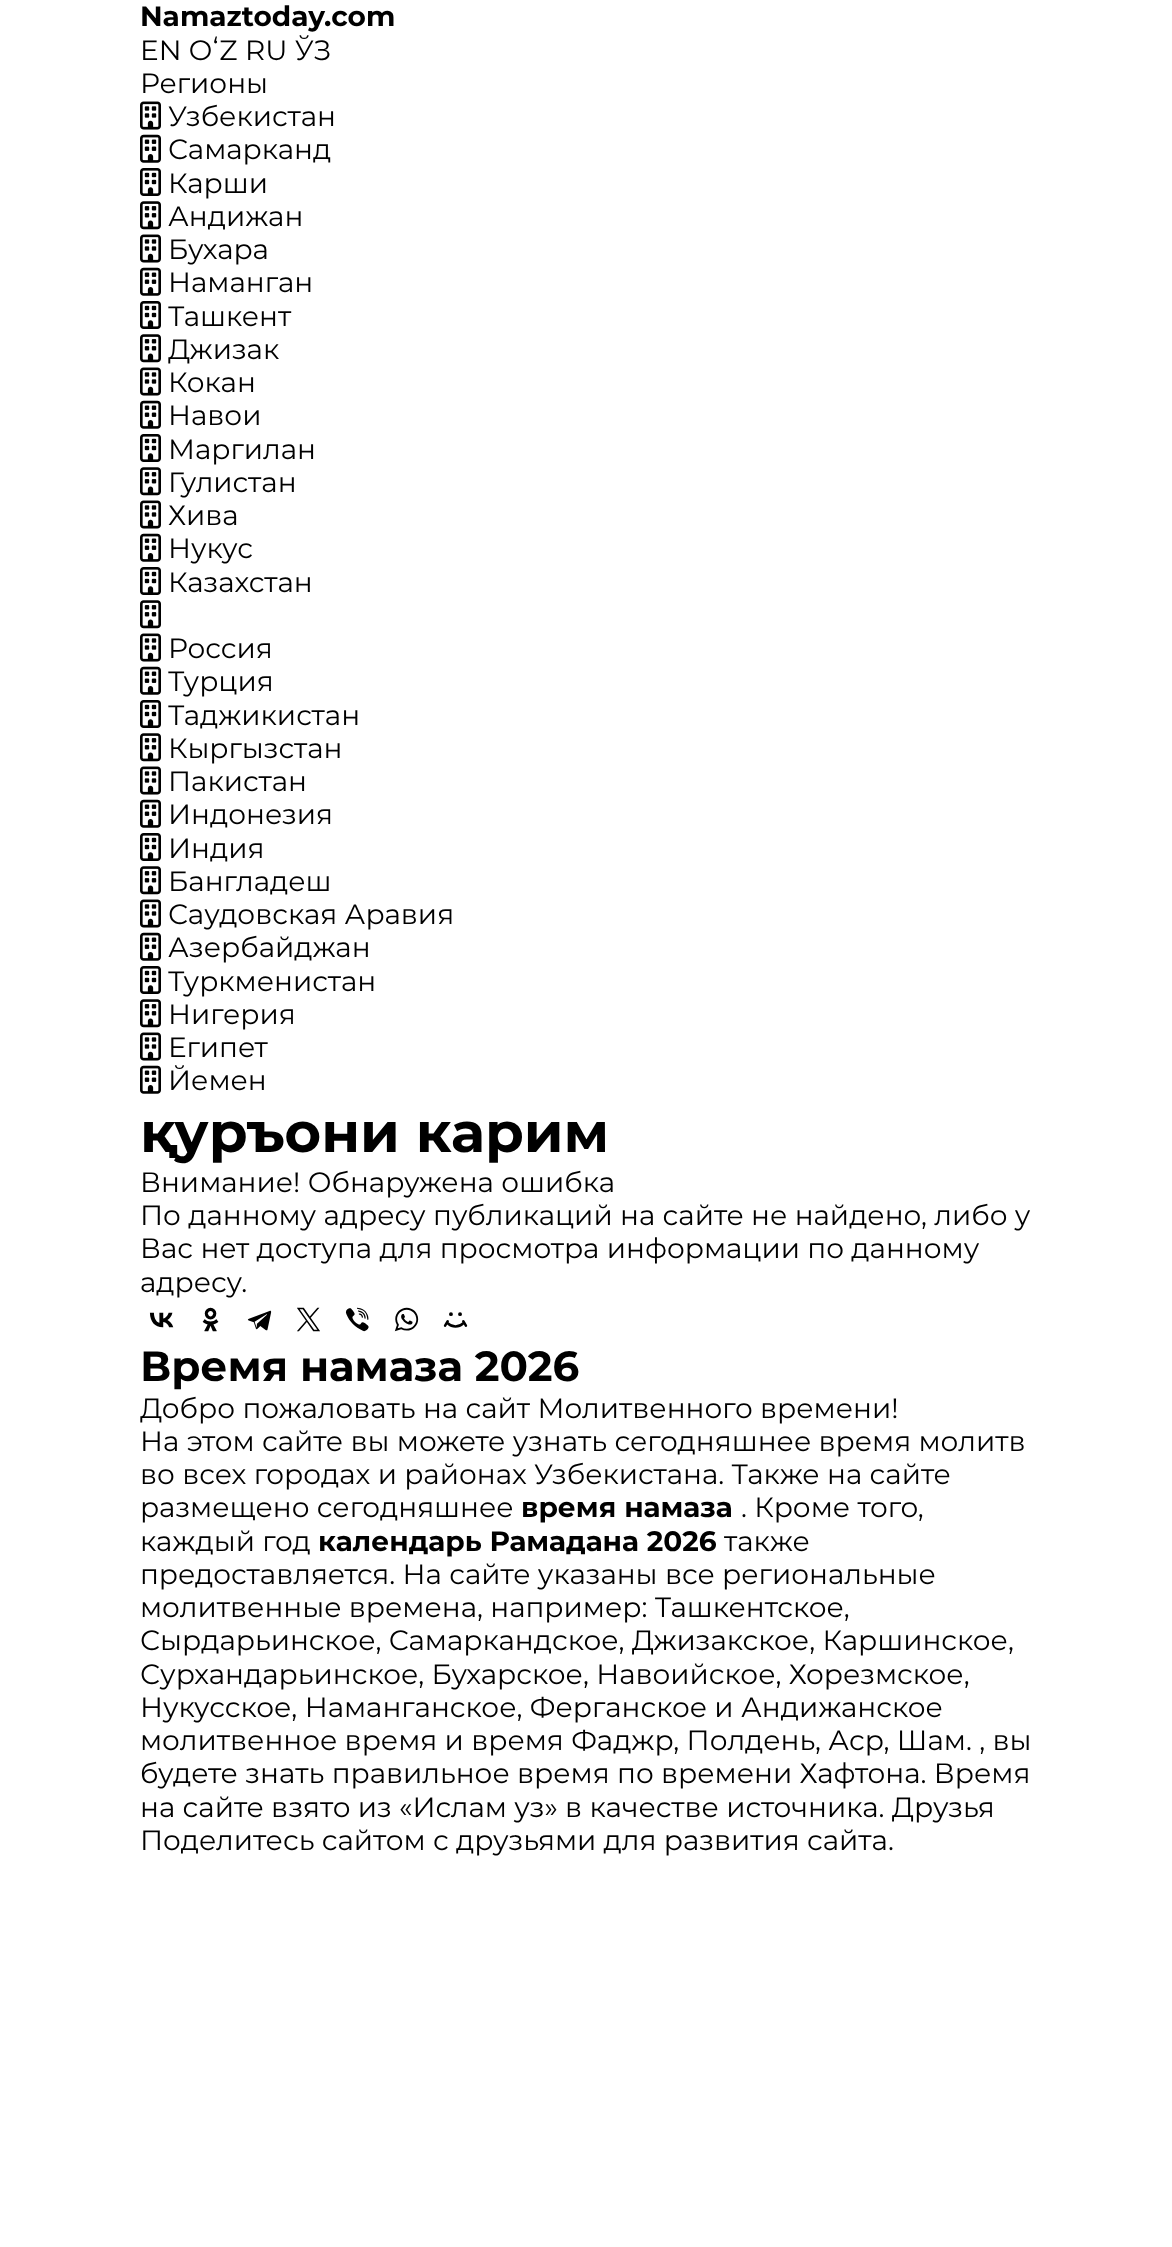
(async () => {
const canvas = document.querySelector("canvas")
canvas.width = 1172
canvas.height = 2247
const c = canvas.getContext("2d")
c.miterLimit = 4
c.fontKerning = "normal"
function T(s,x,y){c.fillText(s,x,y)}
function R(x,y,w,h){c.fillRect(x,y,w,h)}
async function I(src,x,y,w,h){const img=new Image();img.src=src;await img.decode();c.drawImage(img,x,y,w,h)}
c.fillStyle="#fff"
R(0,0,1172,2247)
c.font="bold 28px Montserrat"
c.fillStyle="#000"
T("Namaztoday.com",140,26)
c.font="28px Montserrat"
T("EN OʻZ RU ЎЗ",140,60)
T("Регионы",140,93)
await I("1.png",140,101,21,29)
T("Узбекистан",168,126)
await I("2.png",140,134,21,29)
T("Самарканд",168,159)
await I("3.png",140,168,21,28)
T("Карши",168,193)
await I("4.png",140,201,21,29)
T("Андижан",168,226)
await I("1.png",140,234,21,29)
T("Бухара",168,259)
await I("2.png",140,267,21,29)
T("Наманган",168,292)
await I("3.png",140,301,21,28)
T("Ташкент",168,326)
await I("4.png",140,334,21,29)
T("Джизак",168,359)
await I("1.png",140,367,21,29)
T("Кокан",168,392)
await I("2.png",140,400,21,29)
T("Навои",168,425)
await I("3.png",140,434,21,28)
T("Маргилан",168,459)
await I("4.png",140,467,21,29)
T("Гулистан",168,492)
await I("1.png",140,500,21,29)
T("Хива",168,525)
await I("2.png",140,533,21,29)
T("Нукус",168,558)
await I("3.png",140,567,21,28)
T("Казахстан",168,592)
await I("4.png",140,600,21,29)
await I("1.png",140,633,21,29)
T("Россия",168,658)
await I("2.png",140,666,21,29)
T("Турция",168,691)
await I("3.png",140,700,21,28)
T("Таджикистан",168,725)
await I("4.png",140,733,21,29)
T("Кыргызстан",168,758)
await I("1.png",140,766,21,29)
T("Пакистан",168,791)
await I("2.png",140,799,21,29)
T("Индонезия",168,824)
await I("3.png",140,833,21,28)
T("Индия",168,858)
await I("4.png",140,866,21,29)
T("Бангладеш",168,891)
await I("1.png",140,899,21,29)
T("Саудовская Аравия",168,924)
await I("2.png",140,932,21,29)
T("Азербайджан",168,957)
await I("3.png",140,966,21,28)
T("Туркменистан",168,991)
await I("4.png",140,999,21,29)
T("Нигерия",168,1024)
await I("1.png",140,1032,21,29)
T("Египет",168,1057)
await I("2.png",140,1065,21,29)
T("Йемен",168,1090)
c.font="bold 56px Montserrat"
T("қуръони карим",140,1152)
c.font="28px Montserrat"
T("Внимание! Обнаружена ошибка",140,1192)
T("По данному адресу публикаций на сайте не найдено, либо у",140,1225)
T("Вас нет доступа для просмотра информации по данному",140,1258)
T("адресу.",140,1292)
await I("5.png",149,1312,25,16)
await I("6.png",202,1307,17,25)
await I("7.png",247,1310,25,21)
await I("8.png",297,1307,23,25)
await I("9.png",345,1307,24,25)
await I("10.png",394,1307,25,25)
await I("11.png",443,1312,25,16)
c.font="bold 42px Montserrat"
T("Время намаза 2026",140,1381)
c.font="28px Montserrat"
T("Добро пожаловать на сайт Молитвенного времени!",140,1418)
T("На этом сайте вы можете узнать сегодняшнее время молитв",140,1451)
T("во всех городах и районах Узбекистана. Также на сайте",140,1484)
T("размещено сегодняшнее",140,1517)
c.font="bold 28px Montserrat"
T("время намаза",521,1517)
c.font="28px Montserrat"
T(". Кроме того,",741,1517)
T("каждый год",140,1551)
c.font="bold 28px Montserrat"
T("календарь Рамадана 2026",318,1551)
c.font="28px Montserrat"
T("также",724,1551)
T("предоставляется. На сайте указаны все региональные",140,1584)
T("молитвенные времена, например: Ташкентское,",140,1617)
T("Сырдарьинское, Самаркандское, Джизакское, Каршинское,",140,1650)
T("Сурхандарьинское, Бухарское, Навоийское, Хорезмское,",140,1684)
T("Нукусское, Наманганское, Ферганское и Андижанское",140,1717)
T("молитвенное время и время Фаджр, Полдень, Аср, Шам. , вы",140,1750)
T("будете знать правильное время по времени Хафтона. Время",140,1783)
T("на сайте взято из «Ислам уз» в качестве источника. Друзья",140,1817)
T("Поделитесь сайтом с друзьями для развития сайта.",140,1850)
})()
